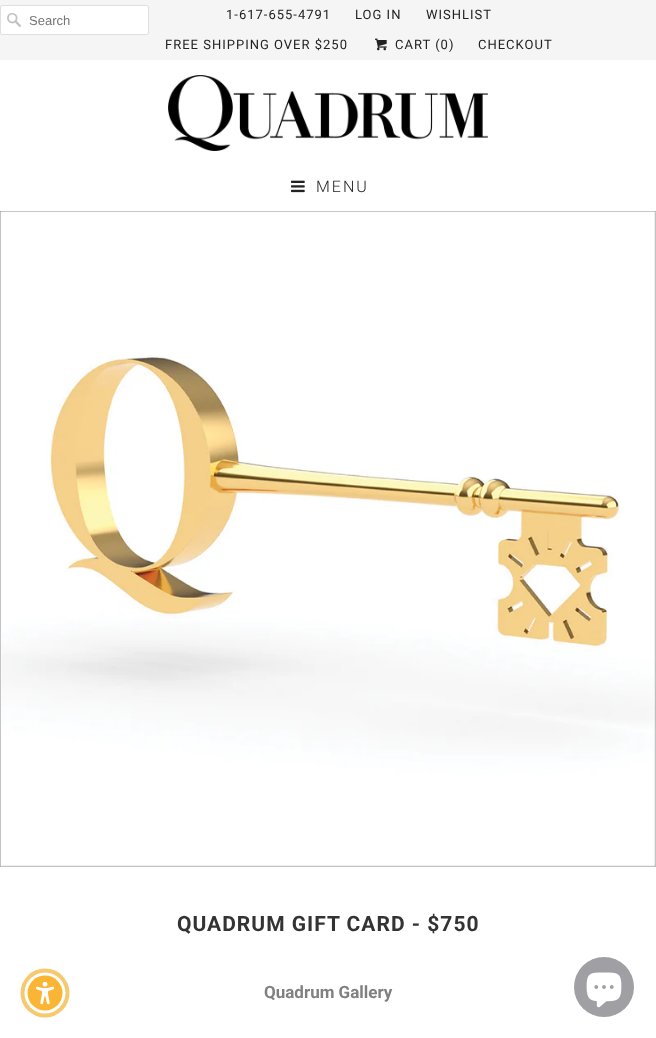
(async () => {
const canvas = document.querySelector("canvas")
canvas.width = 656
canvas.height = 1038
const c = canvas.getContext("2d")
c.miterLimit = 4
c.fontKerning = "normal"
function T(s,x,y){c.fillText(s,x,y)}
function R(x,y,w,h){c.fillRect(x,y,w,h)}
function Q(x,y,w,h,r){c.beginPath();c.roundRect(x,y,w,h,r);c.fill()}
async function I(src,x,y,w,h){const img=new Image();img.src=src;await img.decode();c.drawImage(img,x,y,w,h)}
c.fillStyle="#fff"
R(0,0,656,1038)
c.fillStyle="#f5f5f5"
R(0,0,656,60)
c.fillStyle="#fff"
Q(0,5,149,30,2)
await I("1.png",7,13,14,14)
c.beginPath()
c.roundRect(.5,5.5,148,29,1.5)
c.strokeStyle="#dfdfdf"
c.stroke()
c.font="13px Liberation Sans"
c.fillStyle="#757575"
T("Search",29,25)
c.letterSpacing="1px"
c.font="13px Roboto"
c.fillStyle="#222"
T("1-617-655-4791",226,19)
T("LOG IN",355,19)
T("WISHLIST",426,19)
T("FREE SHIPPING OVER $250",165,49)
await I("2.png",375,38,12,13)
T("CART (0)",395,49)
T("CHECKOUT",478,49)
await I("3.png",168,75,320,76)
await I("4.png",291,180,14,13)
c.letterSpacing="2px"
c.font="300 16px Roboto"
T("MENU",316,192)
c.fillStyle="#f6c96f"
c.beginPath()
c.arc(45,993,24.5,0,7)
c.fill()
c.fillStyle="#fff"
c.beginPath()
c.arc(45,993,20.5,0,7)
c.fill()
c.fillStyle="#fab534"
c.beginPath()
c.arc(45,993,17.5,0,7)
c.fill()
await I("5.png",35,982,20,23)
await I("6.png",0,211,656,656)
c.letterSpacing="1px"
c.font="bold 21px Roboto"
c.fillStyle="#333"
T("QUADRUM GIFT CARD - $750",177,931)
c.letterSpacing="0px"
c.font="bold 17px Roboto"
c.fillStyle="#808080"
T("Quadrum Gallery",264,998)
c.fillStyle="#9f9fa4"
c.beginPath()
c.arc(604,987,30,0,7)
c.fill()
await I("7.png",586,972,36,36)
})()
